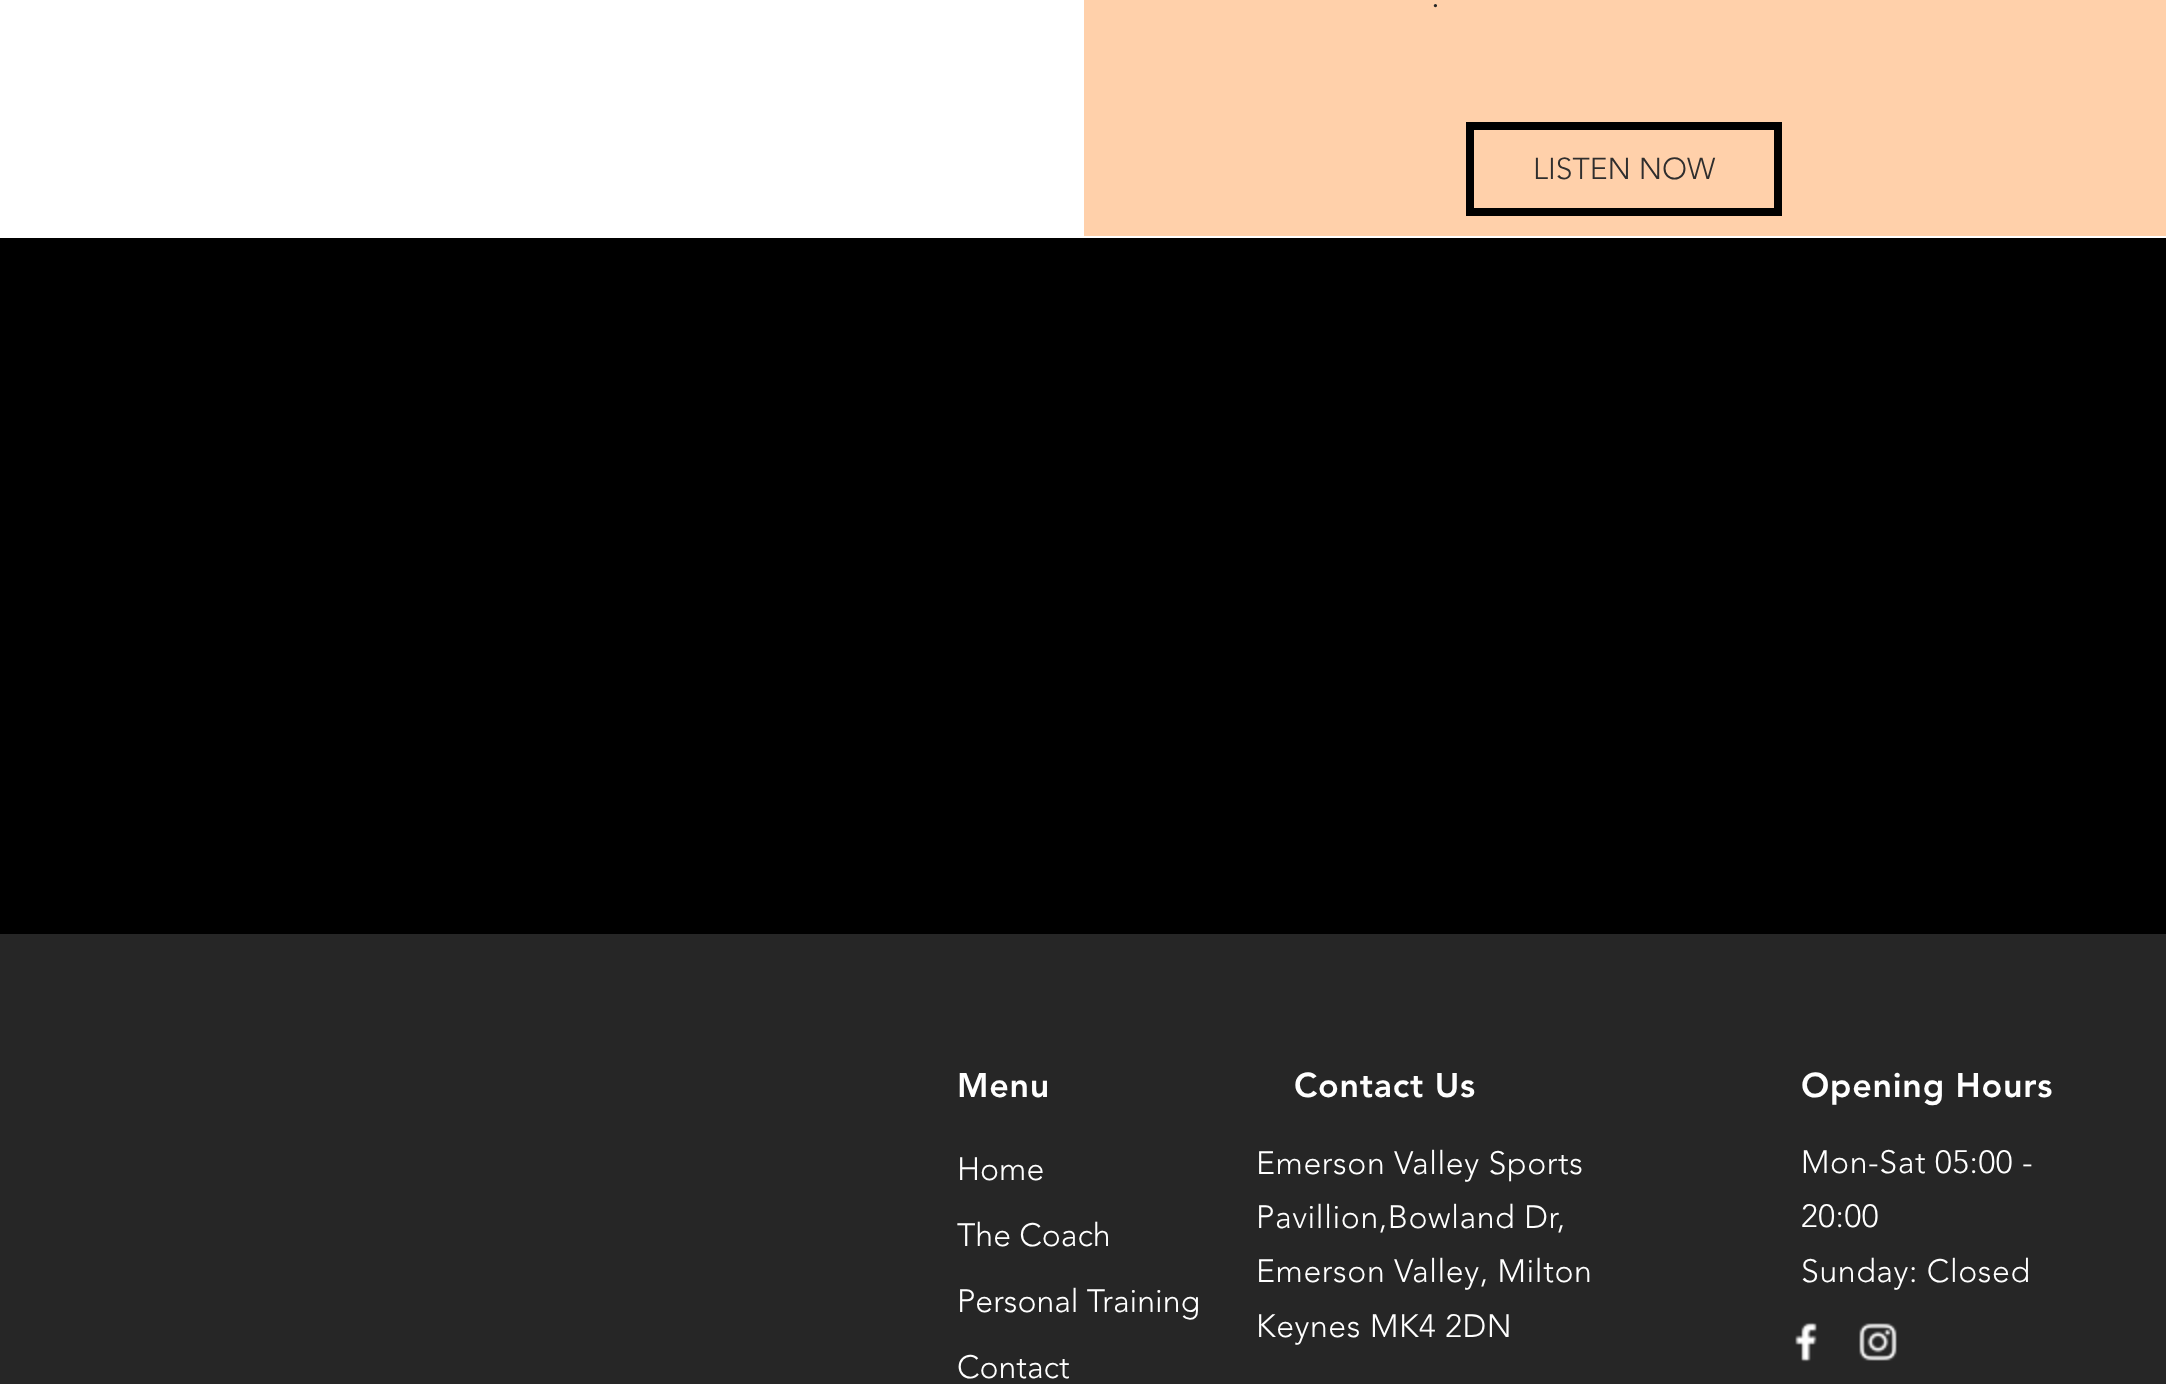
(async () => {
const canvas = document.querySelector("canvas")
canvas.width = 2166
canvas.height = 1384
const c = canvas.getContext("2d")
c.miterLimit = 4
c.fontKerning = "normal"
function T(s,x,y){c.fillText(s,x,y)}
function R(x,y,w,h){c.fillRect(x,y,w,h)}
async function I(src,x,y,w,h){const img=new Image();img.src=src;await img.decode();c.drawImage(img,x,y,w,h)}
c.fillStyle="#fff"
R(0,0,2166,1384)
c.fillStyle="#ffd0aa"
R(1084,0,1082,236)
c.font="300 34px 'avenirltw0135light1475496'"
c.fillStyle="#262626"
T(".",1431,7)
c.strokeStyle="#000"
c.lineWidth=8
c.strokeRect(1470,126,308,86)
c.font="300 30px 'avenirltw0135light1475496'"
c.fillStyle="#2f2e2e"
T("LISTEN NOW",1533,179)
c.fillStyle="#000"
R(0,238,2166,696)
c.fillStyle="#262626"
R(0,934,2166,450)
c.letterSpacing="0.75px"
c.font="900 34px 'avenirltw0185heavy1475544'"
c.fillStyle="#fff"
T("Menu",957,1097)
c.letterSpacing="0px"
c.font="300 32px 'avenirltw0135light1475496'"
T("Home",957,1180)
T("The Coach",957,1246)
T("Personal Training",957,1312)
T("Contact",957,1378)
c.letterSpacing="0.75px"
c.font="900 34px 'avenirltw0185heavy1475544'"
T("Contact Us",1294,1097)
c.letterSpacing="0.6px"
c.font="300 32px 'avenirltw0135light1475496'"
T("Emerson Valley Sports",1256,1174)
T("Pavillion,Bowland Dr,",1256,1228)
T("Emerson Valley, Milton",1256,1282)
T("Keynes MK4 2DN",1256,1337)
c.letterSpacing="0.75px"
c.font="900 34px 'avenirltw0185heavy1475544'"
T("Opening Hours",1801,1097)
c.letterSpacing="0.6px"
c.font="300 32px 'avenirltw0135light1475496'"
T("Mon-Sat 05:00 -",1801,1173)
T("20:00",1801,1227)
T("Sunday: Closed",1801,1282)
await I("1.png",1795,1322,22,40)
await I("2.png",1859,1323,38,38)
})()
